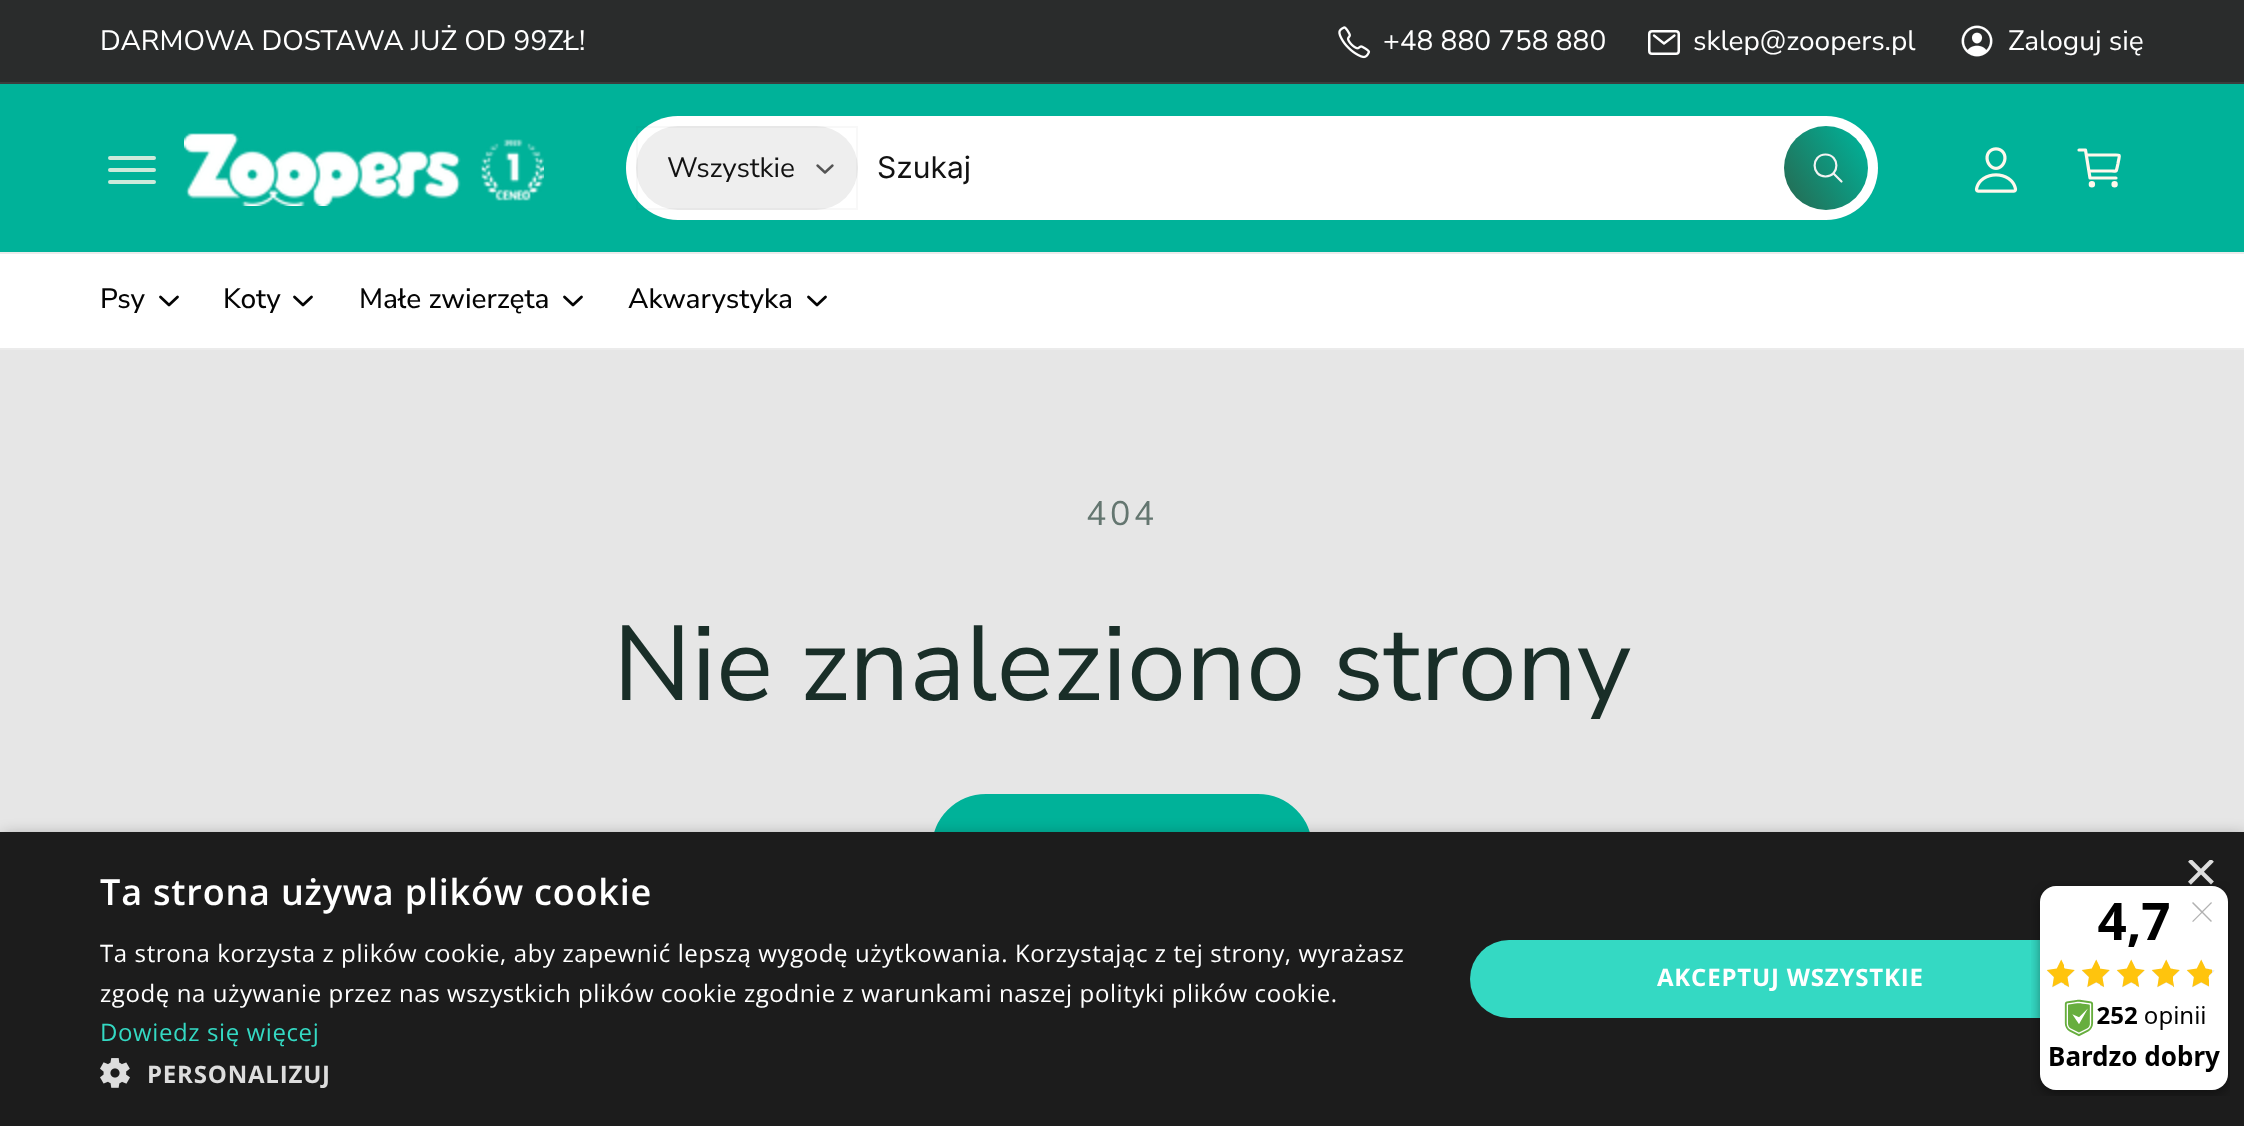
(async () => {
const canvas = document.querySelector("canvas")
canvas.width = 2244
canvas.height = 1126
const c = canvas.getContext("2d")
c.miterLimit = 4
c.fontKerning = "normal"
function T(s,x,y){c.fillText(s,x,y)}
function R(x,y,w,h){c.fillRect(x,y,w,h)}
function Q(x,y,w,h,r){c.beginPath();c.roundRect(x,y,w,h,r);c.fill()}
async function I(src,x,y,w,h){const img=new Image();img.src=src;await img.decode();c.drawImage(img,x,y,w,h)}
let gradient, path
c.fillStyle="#e6e6e6"
R(0,0,2244,1126)
c.fillStyle="#2a2c2c"
R(0,0,2244,82)
c.fillStyle="#3b3d3d"
R(0,82,2244,2)
c.font="28px Nunito Sans"
c.fillStyle="#fff"
T("DARMOWA DOSTAWA JUŻ OD 99ZŁ!",100,50)
await I("1.png",1338,26,33,33)
T("+48 880 758 880",1383,50)
c.beginPath()
c.roundRect(1649.25,31.25,29.5,22.5,2.75)
c.strokeStyle="#fff"
c.lineWidth=2.5
c.stroke()
path = new Path2D("M1654 35.5l10 8l10.5-8")
c.lineWidth=2.3
c.lineCap="round"
c.lineJoin="round"
c.stroke(path)
T("sklep@zoopers.pl",1693,50)
await I("2.png",1961,25,32,32)
T("Zaloguj się",2008,50)
c.fillStyle="#00b299"
R(0,84,2244,168)
path = new Path2D("M110 158h44m-44 12h44m-44 12h44")
c.strokeStyle="#cceadb"
c.lineWidth=4
c.lineJoin="miter"
c.stroke(path)
await I("3.png",184,133,360,73)
c.fillStyle="#fff"
Q(626,116,1252,104,52)
c.fillStyle="#eee"
Q(636,126,222,84,42)
c.strokeStyle="#12121208"
c.lineWidth=2
c.strokeRect(637,127,220,82)
c.fillStyle="#121212"
T("Wszystkie",667,177)
path = new Path2D("M817.5 165.5l7.5 7l7.5-7")
c.strokeStyle="#545454"
c.lineWidth=2.4
c.lineJoin="round"
c.stroke(path)
c.font="30px Inter"
T("Szukaj",877,178)
gradient = c.createLinearGradient(1875,137,1777,199)
gradient.addColorStop(.06,"#00b299")
gradient.addColorStop(.94,"#256c54")
c.fillStyle = gradient
c.beginPath()
c.arc(1826,168,42,0,7)
c.fill()
path = new Path2D("M1825.5 154.5c-14.5 0-14.5 22 0 22c14.5 0 14.5-22 0-22z")
c.strokeStyle="#f3f3f3"
c.lineWidth=2.2
c.lineCap="butt"
c.lineJoin="miter"
c.stroke(path)
path = new Path2D("M1834 174l7.5 7.5")
c.lineCap="round"
c.stroke(path)
await I("4.png",1974,147,44,46)
c.beginPath()
c.arc(2091.9,184.2,1.6,0,7)
c.strokeStyle="#fff8ec"
c.lineWidth=3.2
c.stroke()
c.beginPath()
c.arc(2114.6,184.2,1.6,0,7)
c.stroke()
path = new Path2D("M2079 150h6.5l4.5 28h26m-26-7h21.5c5 0 4.5 1.5 5.5-3l1-4.5c1.5-9.5 3.5-8.5-4.5-8.5h-26.5")
c.lineJoin="round"
c.stroke(path)
c.fillStyle="#fff"
R(0,254,2244,94)
c.fillStyle="#ebebeb"
R(0,252,2244,2)
R(0,348,2244,2)
c.font="500 28px Nunito Sans"
c.fillStyle="#040404"
T("Psy",100,308)
path = new Path2D("M160.5 297l8.5 8l8.5-8")
c.strokeStyle="#040404"
c.lineWidth=2.8
c.stroke(path)
T("Koty",223,308)
path = new Path2D("M294.5 297l8.5 8l8.5-8")
c.stroke(path)
T("Małe zwierzęta",359,308)
path = new Path2D("M564.5 297l8.5 8l8.5-8")
c.stroke(path)
T("Akwarystyka",628,308)
path = new Path2D("M808.5 297l8.5 8l8.5-8")
c.stroke(path)
c.letterSpacing="3.5px"
c.font="34px Nunito Sans"
c.fillStyle="#647670"
T("404",1086,525)
c.letterSpacing="0.1px"
c.font="106px Nunito Sans"
c.fillStyle="#192e28"
T("Nie znaleziono strony",613,700)
c.fillStyle="#00b299"
c.beginPath()
c.roundRect(934,796,376,104,52)
c.fill()
c.strokeStyle="#00b299"
c.lineWidth=4
c.lineJoin="miter"
c.stroke()
c.fillStyle="#00000059"
c.filter="blur(8px)"
c.beginPath()
c.rect(2,836,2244,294)
c.fill()
c.filter="none"
c.fillStyle="#1c1c1c"
R(0,832,2244,294)
c.save()
c.beginPath()
c.rect(2184,860,30,30)
c.clip()
c.letterSpacing="0px"
c.font="58px Liberation Sans"
c.fillStyle="#ddd"
T("×",2184,891)
c.restore()
c.letterSpacing="0.8px"
c.font="600 36px Open Sans"
c.fillStyle="#fff"
T("Ta strona używa plików cookie",100,905)
c.letterSpacing="0.6px"
c.font="24px Open Sans"
T("Ta strona korzysta z plików cookie, aby zapewnić lepszą wygodę użytkowania. Korzystając z tej strony, wyrażasz",100,962)
T("zgodę na używanie przez nas wszystkich plików cookie zgodnie z warunkami naszej polityki plików cookie.",100,1002)
c.fillStyle="#34d9c3"
T("Dowiedz się więcej",100,1041)
await I("5.png",100,1058,30,30)
c.letterSpacing="0.8px"
c.font="bold 24px Open Sans"
c.fillStyle="#ddd"
T("PERSONALIZUJ",147,1083)
c.fillStyle="#34d9c3"
Q(1470,940,640,78,39)
c.fillStyle="#fff"
T("AKCEPTUJ WSZYSTKIE",1657,986)
await I("6.png",2031,881,199,215)
})()
